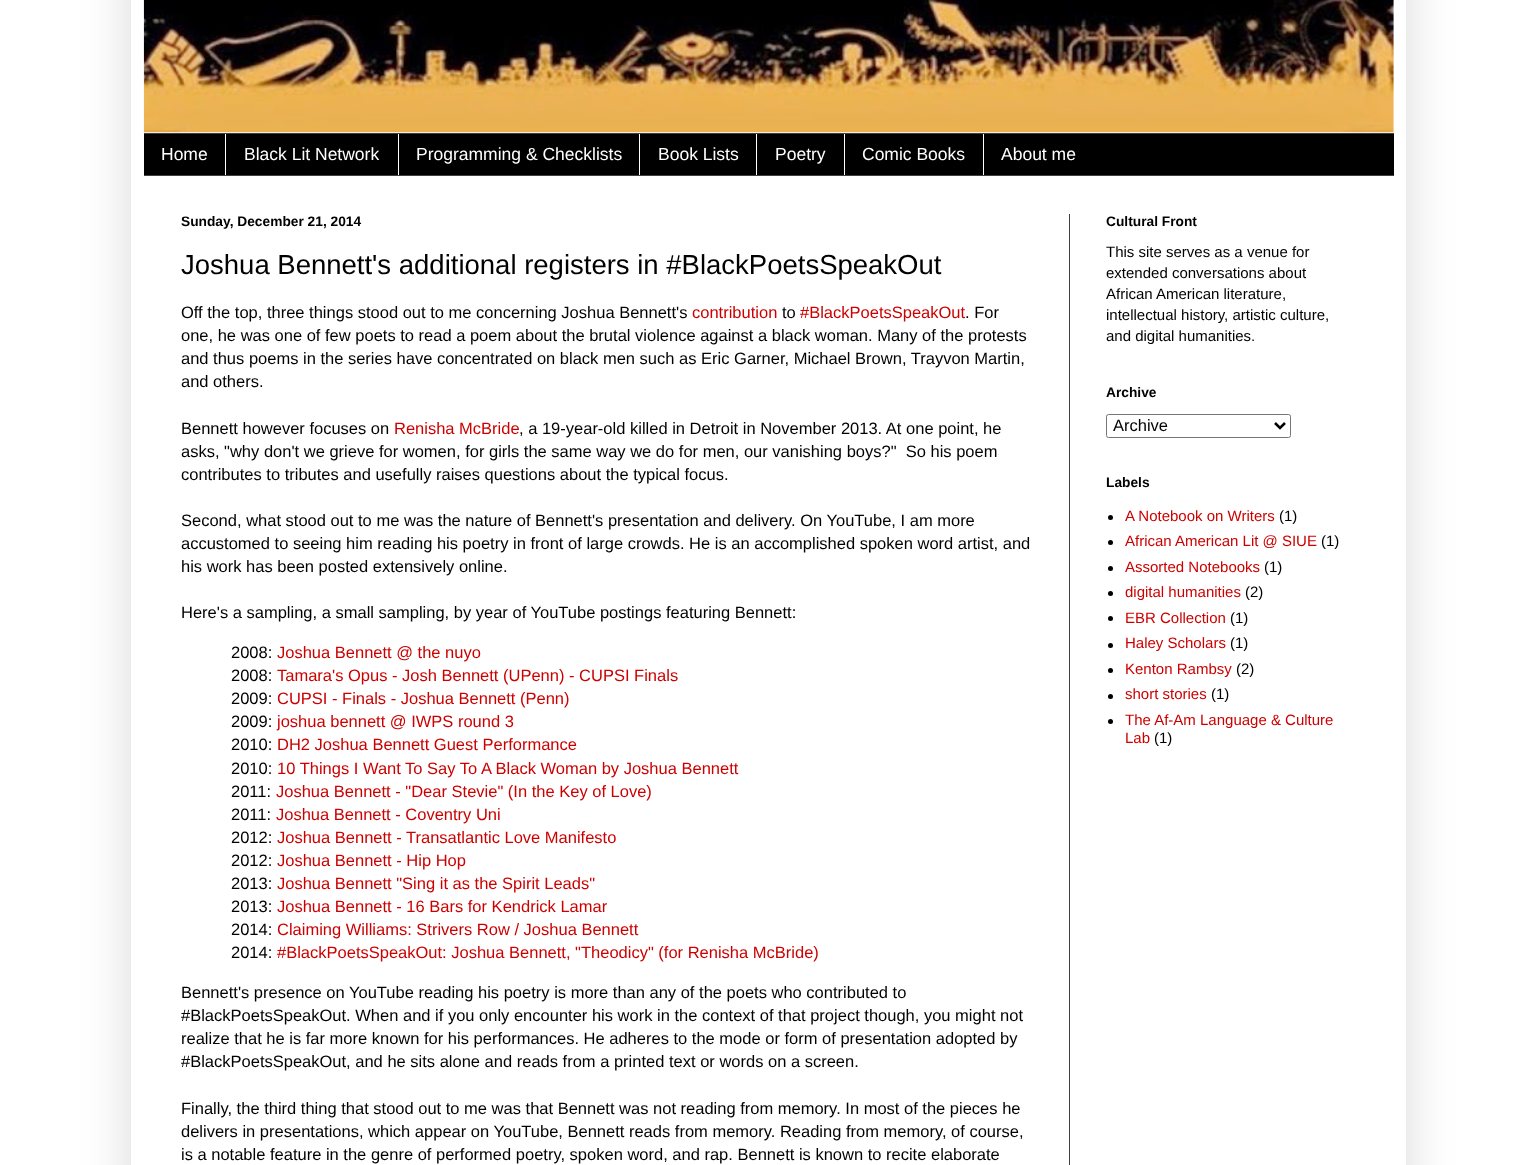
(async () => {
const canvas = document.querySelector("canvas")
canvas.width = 1537
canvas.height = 1165
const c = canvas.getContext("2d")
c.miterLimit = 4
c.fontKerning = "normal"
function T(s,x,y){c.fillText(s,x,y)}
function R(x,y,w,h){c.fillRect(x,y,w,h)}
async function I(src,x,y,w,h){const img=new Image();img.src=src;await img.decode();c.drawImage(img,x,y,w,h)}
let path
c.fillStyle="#fff"
R(0,0,1537,1165)
c.fillStyle="#00000026"
c.filter="blur(25px)"
c.beginPath()
c.rect(131,-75,1275,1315)
c.fill()
c.filter="none"
c.fillStyle="#fff"
R(131,0,1275,1165)
await I("1.png",143,0,1251,133)
c.fillStyle="#000"
R(144,134,1250,41)
c.fillStyle="#404040"
R(144,133,1250,1)
R(144,175,1250,1)
c.font="17.5px Liberation Sans"
c.fillStyle="#fff"
T("Home",161,160)
R(225,134,1,41)
T("Black Lit Network",244,160)
R(398,134,1,41)
T("Programming & Checklists",416,160)
R(639,134,1,41)
T("Book Lists",658,160)
R(756,134,1,41)
T("Poetry",775,160)
R(844,134,1,41)
T("Comic Books",862,160)
R(983,134,1,41)
T("About me",1001,160)
c.fillStyle="#404040"
R(1069,214,1,951)
c.font="bold 13.75px Liberation Sans"
c.fillStyle="#000"
T("Sunday, December 21, 2014",181,226)
c.font="27.5px Liberation Sans"
T("Joshua Bennett's additional registers in #BlackPoetsSpeakOut",181,274)
c.font="16.5px Liberation Sans"
T("Off the top, three things stood out to me concerning Joshua Bennett's",181,318)
c.fillStyle="#c00"
T("contribution",692,318)
c.fillStyle="#000"
T("to",782,318)
c.fillStyle="#c00"
T("#BlackPoetsSpeakOut",800,318)
c.fillStyle="#000"
T(". For",965,318)
T("one, he was one of few poets to read a poem about the brutal violence against a black woman. Many of the protests",181,341)
T("and thus poems in the series have concentrated on black men such as Eric Garner, Michael Brown, Trayvon Martin,",181,364)
T("and others.",181,387)
T("Bennett however focuses on",181,434)
c.fillStyle="#c00"
T("Renisha McBride",394,434)
c.fillStyle="#000"
T(", a 19-year-old killed in Detroit in November 2013. At one point, he",519,434)
T("asks, \"why don't we grieve for women, for girls the same way we do for men, our vanishing boys?\"  So his poem",181,457)
T("contributes to tributes and usefully raises questions about the typical focus.",181,480)
T("Second, what stood out to me was the nature of Bennett's presentation and delivery. On YouTube, I am more",181,526)
T("accustomed to seeing him reading his poetry in front of large crowds. He is an accomplished spoken word artist, and",181,549)
T("his work has been posted extensively online.",181,572)
T("Here's a sampling, a small sampling, by year of YouTube postings featuring Bennett:",181,618)
T("2008:",231,658)
c.fillStyle="#c00"
T("Joshua Bennett @ the nuyo",277,658)
c.fillStyle="#000"
T("2008:",231,681)
c.fillStyle="#c00"
T("Tamara's Opus - Josh Bennett (UPenn) - CUPSI Finals",277,681)
c.fillStyle="#000"
T("2009:",231,704)
c.fillStyle="#c00"
T("CUPSI - Finals - Joshua Bennett (Penn)",277,704)
c.fillStyle="#000"
T("2009:",231,727)
c.fillStyle="#c00"
T("joshua bennett @ IWPS round 3",277,727)
c.fillStyle="#000"
T("2010:",231,750)
c.fillStyle="#c00"
T("DH2 Joshua Bennett Guest Performance",277,750)
c.fillStyle="#000"
T("2010:",231,774)
c.fillStyle="#c00"
T("10 Things I Want To Say To A Black Woman by Joshua Bennett",277,774)
c.fillStyle="#000"
T("2011:",231,797)
c.fillStyle="#c00"
T("Joshua Bennett - \"Dear Stevie\" (In the Key of Love)",276,797)
c.fillStyle="#000"
T("2011:",231,820)
c.fillStyle="#c00"
T("Joshua Bennett - Coventry Uni",276,820)
c.fillStyle="#000"
T("2012:",231,843)
c.fillStyle="#c00"
T("Joshua Bennett - Transatlantic Love Manifesto",277,843)
c.fillStyle="#000"
T("2012:",231,866)
c.fillStyle="#c00"
T("Joshua Bennett - Hip Hop",277,866)
c.fillStyle="#000"
T("2013:",231,889)
c.fillStyle="#c00"
T("Joshua Bennett \"Sing it as the Spirit Leads\"",277,889)
c.fillStyle="#000"
T("2013:",231,912)
c.fillStyle="#c00"
T("Joshua Bennett - 16 Bars for Kendrick Lamar",277,912)
c.fillStyle="#000"
T("2014:",231,935)
c.fillStyle="#c00"
T("Claiming Williams: Strivers Row / Joshua Bennett",277,935)
c.fillStyle="#000"
T("2014:",231,958)
c.fillStyle="#c00"
T("#BlackPoetsSpeakOut: Joshua Bennett, \"Theodicy\" (for Renisha McBride)",277,958)
c.fillStyle="#000"
T("Bennett's presence on YouTube reading his poetry is more than any of the poets who contributed to",181,998)
T("#BlackPoetsSpeakOut. When and if you only encounter his work in the context of that project though, you might not",181,1021)
T("realize that he is far more known for his performances. He adheres to the mode or form of presentation adopted by",181,1044)
T("#BlackPoetsSpeakOut, and he sits alone and reads from a printed text or words on a screen.",181,1067)
T("Finally, the third thing that stood out to me was that Bennett was not reading from memory. In most of the pieces he",181,1114)
T("delivers in presentations, which appear on YouTube, Bennett reads from memory. Reading from memory, of course,",181,1137)
T("is a notable feature in the genre of performed poetry, spoken word, and rap. Bennett is known to recite elaborate",181,1160)
c.font="bold 13.75px Liberation Sans"
T("Cultural Front",1106,226)
c.font="15px Liberation Sans"
T("This site serves as a venue for",1106,257)
T("extended conversations about",1106,278)
T("African",1106,299)
T("American literature,",1156,299)
T("intellectual history, artistic culture,",1106,320)
T("and digital humanities.",1106,341)
c.font="bold 13.75px Liberation Sans"
T("Archive",1106,397)
c.beginPath()
c.roundRect(1106.5,414.5,184,23,2)
c.strokeStyle="#767676"
c.stroke()
path = new Path2D("M1275 423l5 5l5-5")
c.strokeStyle="#000"
c.lineWidth=2.5
c.stroke(path)
c.font="16.5px Liberation Sans"
T("Archive",1113,431)
c.font="bold 13.75px Liberation Sans"
T("Labels",1106,487)
c.beginPath()
c.arc(1110.5,517.5,2.5,0,7)
c.fill()
c.font="15px Liberation Sans"
c.fillStyle="#c00"
T("A Notebook on Writers",1125,521)
c.fillStyle="#000"
T("(1)",1279,521)
c.beginPath()
c.arc(1110.5,542.5,2.5,0,7)
c.fill()
c.fillStyle="#c00"
T("African American Lit @ SIUE",1125,546)
c.fillStyle="#000"
T("(1)",1321,546)
c.beginPath()
c.arc(1110.5,568.5,2.5,0,7)
c.fill()
c.fillStyle="#c00"
T("Assorted Notebooks",1125,572)
c.fillStyle="#000"
T("(1)",1264,572)
c.beginPath()
c.arc(1110.5,593.5,2.5,0,7)
c.fill()
c.fillStyle="#c00"
T("digital humanities",1125,597)
c.fillStyle="#000"
T("(2)",1245,597)
c.beginPath()
c.arc(1110.5,618.5,2.5,0,7)
c.fill()
c.fillStyle="#c00"
T("EBR Collection",1125,623)
c.fillStyle="#000"
T("(1)",1230,623)
c.beginPath()
c.arc(1110.5,645.5,2.5,0,7)
c.fill()
c.fillStyle="#c00"
T("Haley Scholars",1125,648)
c.fillStyle="#000"
T("(1)",1230,648)
c.beginPath()
c.arc(1110.5,670.5,2.5,0,7)
c.fill()
c.fillStyle="#c00"
T("Kenton Rambsy",1125,674)
c.fillStyle="#000"
T("(2)",1236,674)
c.beginPath()
c.arc(1110.5,696.5,2.5,0,7)
c.fill()
c.fillStyle="#c00"
T("short stories",1125,699)
c.fillStyle="#000"
T("(1)",1211,699)
c.beginPath()
c.arc(1110.5,721.5,2.5,0,7)
c.fill()
c.fillStyle="#c00"
T("The Af-Am Language & Culture",1125,725)
T("Lab",1125,743)
c.fillStyle="#000"
T("(1)",1154,743)
})()
